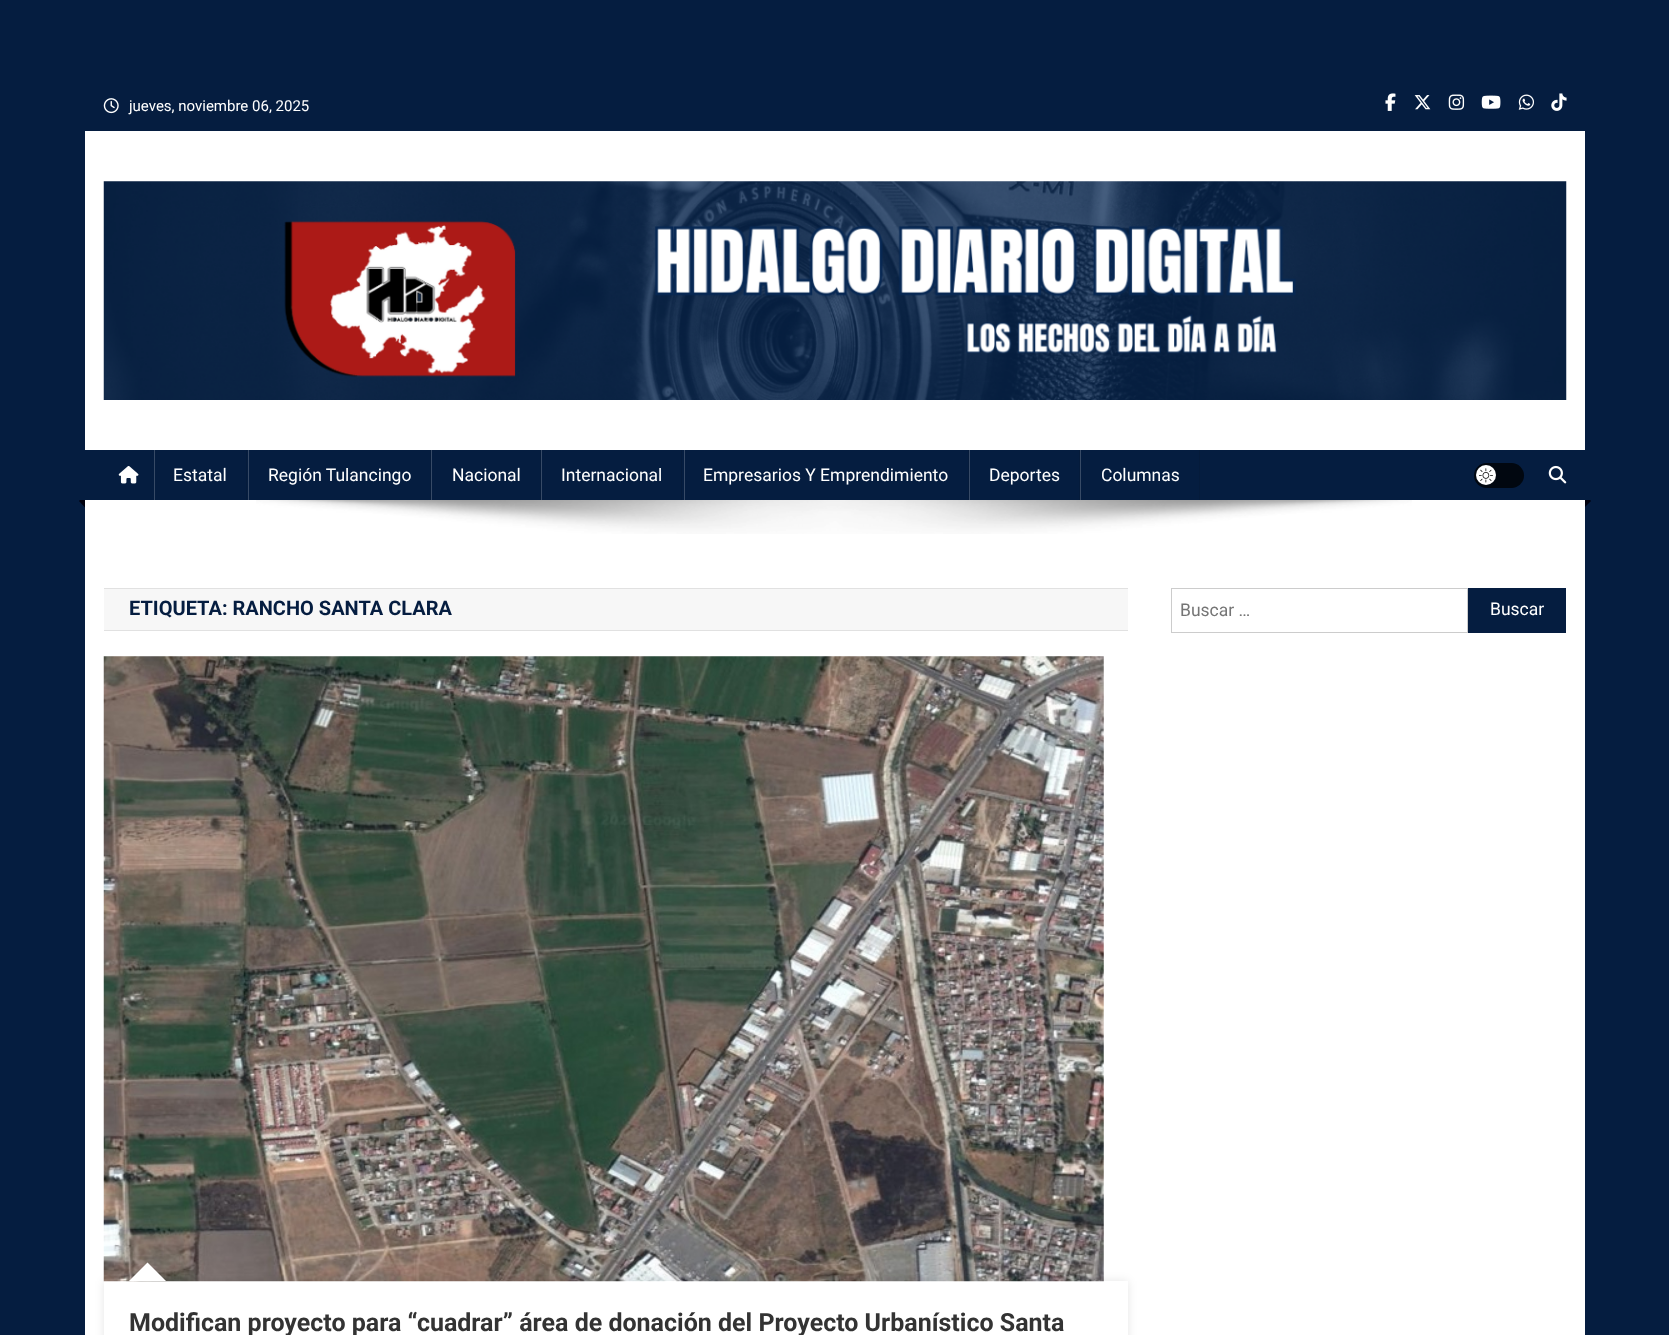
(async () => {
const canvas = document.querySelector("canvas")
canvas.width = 1669
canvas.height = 1335
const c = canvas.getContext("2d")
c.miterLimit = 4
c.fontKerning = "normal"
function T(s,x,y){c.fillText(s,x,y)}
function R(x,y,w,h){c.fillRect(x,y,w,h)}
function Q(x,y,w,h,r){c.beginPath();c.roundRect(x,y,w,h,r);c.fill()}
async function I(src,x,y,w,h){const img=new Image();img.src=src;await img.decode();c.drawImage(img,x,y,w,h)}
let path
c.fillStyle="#051d40"
R(0,0,1669,1335)
c.fillStyle="#fff"
R(85,131,1500,1204)
await I("1.png",103,98,16,16)
c.font="15px Roboto"
T("jueves, noviembre 06, 2025",129,111)
await I("2.png",1385,93,11,18)
await I("3.png",1414,95,17,15)
await I("4.png",1448,94,17,16)
await I("5.png",1481,95,20,14)
await I("6.png",1518,94,16,16)
await I("7.png",1551,93,16,18)
await I("8.png",103,181,1464,219)
c.fillStyle="#051d40"
R(85,450,1500,50)
await I("9.png",118,466,21,18)
c.fillStyle="#051b3b"
R(246,450,1,50)
c.fillStyle="#374a66"
R(154,450,1,50)
c.font="17.5px Roboto"
c.fillStyle="#fff"
T("Estatal",173,481)
c.fillStyle="#051b3b"
R(430,450,1,50)
c.fillStyle="#374a66"
R(248,450,1,50)
c.fillStyle="#fff"
T("Región Tulancingo",268,481)
c.fillStyle="#051b3b"
R(540,450,1,50)
c.fillStyle="#374a66"
R(431,450,1,50)
c.fillStyle="#fff"
T("Nacional",452,481)
c.fillStyle="#051b3b"
R(681,450,1,50)
c.fillStyle="#374a66"
R(541,450,1,50)
c.fillStyle="#fff"
T("Internacional",561,481)
c.fillStyle="#051b3b"
R(968,450,1,50)
c.fillStyle="#374a66"
R(684,450,1,50)
c.fillStyle="#fff"
T("Empresarios Y Emprendimiento",703,481)
c.fillStyle="#051b3b"
R(1079,450,1,50)
c.fillStyle="#374a66"
R(969,450,1,50)
c.fillStyle="#fff"
T("Deportes",989,481)
c.fillStyle="#051b3b"
R(1199,450,1,50)
c.fillStyle="#374a66"
R(1080,450,1,50)
c.fillStyle="#fff"
T("Columnas",1101,481)
c.fillStyle="#010710"
Q(1474,463,50,25,12.5)
c.fillStyle="#fff"
c.beginPath()
c.arc(1486,475,10,0,7)
c.fill()
await I("10.png",1479,468,14,15)
await I("11.png",1548,465,19,19)
await I("12.png",256,500,1156,34)
c.fillStyle="#00000e"
path = new Path2D("M85 495v12.5l-6-6.5z")
c.fill(path)
path = new Path2D("M1585 507v-12.5l6 6.5z")
c.fill(path)
c.fillStyle="#051d40"
R(80,495,5,5)
R(1585,494,5,6)
c.fillStyle="#f7f7f7"
R(104,589,1024,41)
c.fillStyle="#e1e1e1"
R(104,588,1024,1)
R(104,630,1024,1)
c.font="bold 20px Roboto"
c.fillStyle="#051d40"
T("ETIQUETA: RANCHO SANTA CLARA",129,615)
await I("13.png",103,656,1001,626)
c.save()
path = new Path2D("M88 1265h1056v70h-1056zm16 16h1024v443h-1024z")
c.clip(path,"evenodd")
c.fillStyle="#0000001a"
c.filter="blur(5px)"
c.beginPath()
c.rect(104,1281,1024,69)
c.fill()
c.filter="none"
c.restore()
c.fillStyle="#fff"
path = new Path2D("M166 1281h-37l18.5-18.5z")
c.fill(path)
c.font="bold 25px Roboto"
c.fillStyle="#333"
T("Modifican proyecto para “cuadrar” área de donación del Proyecto Urbanístico Santa",129,1331)
c.strokeStyle="#ccc"
c.strokeRect(1171.5,588.5,296,44)
c.font="17.5px Roboto"
c.fillStyle="#757575"
T("Buscar …",1180,616)
c.fillStyle="#051d40"
R(1468,588,98,45)
c.fillStyle="#fff"
T("Buscar",1490,615)
})()
